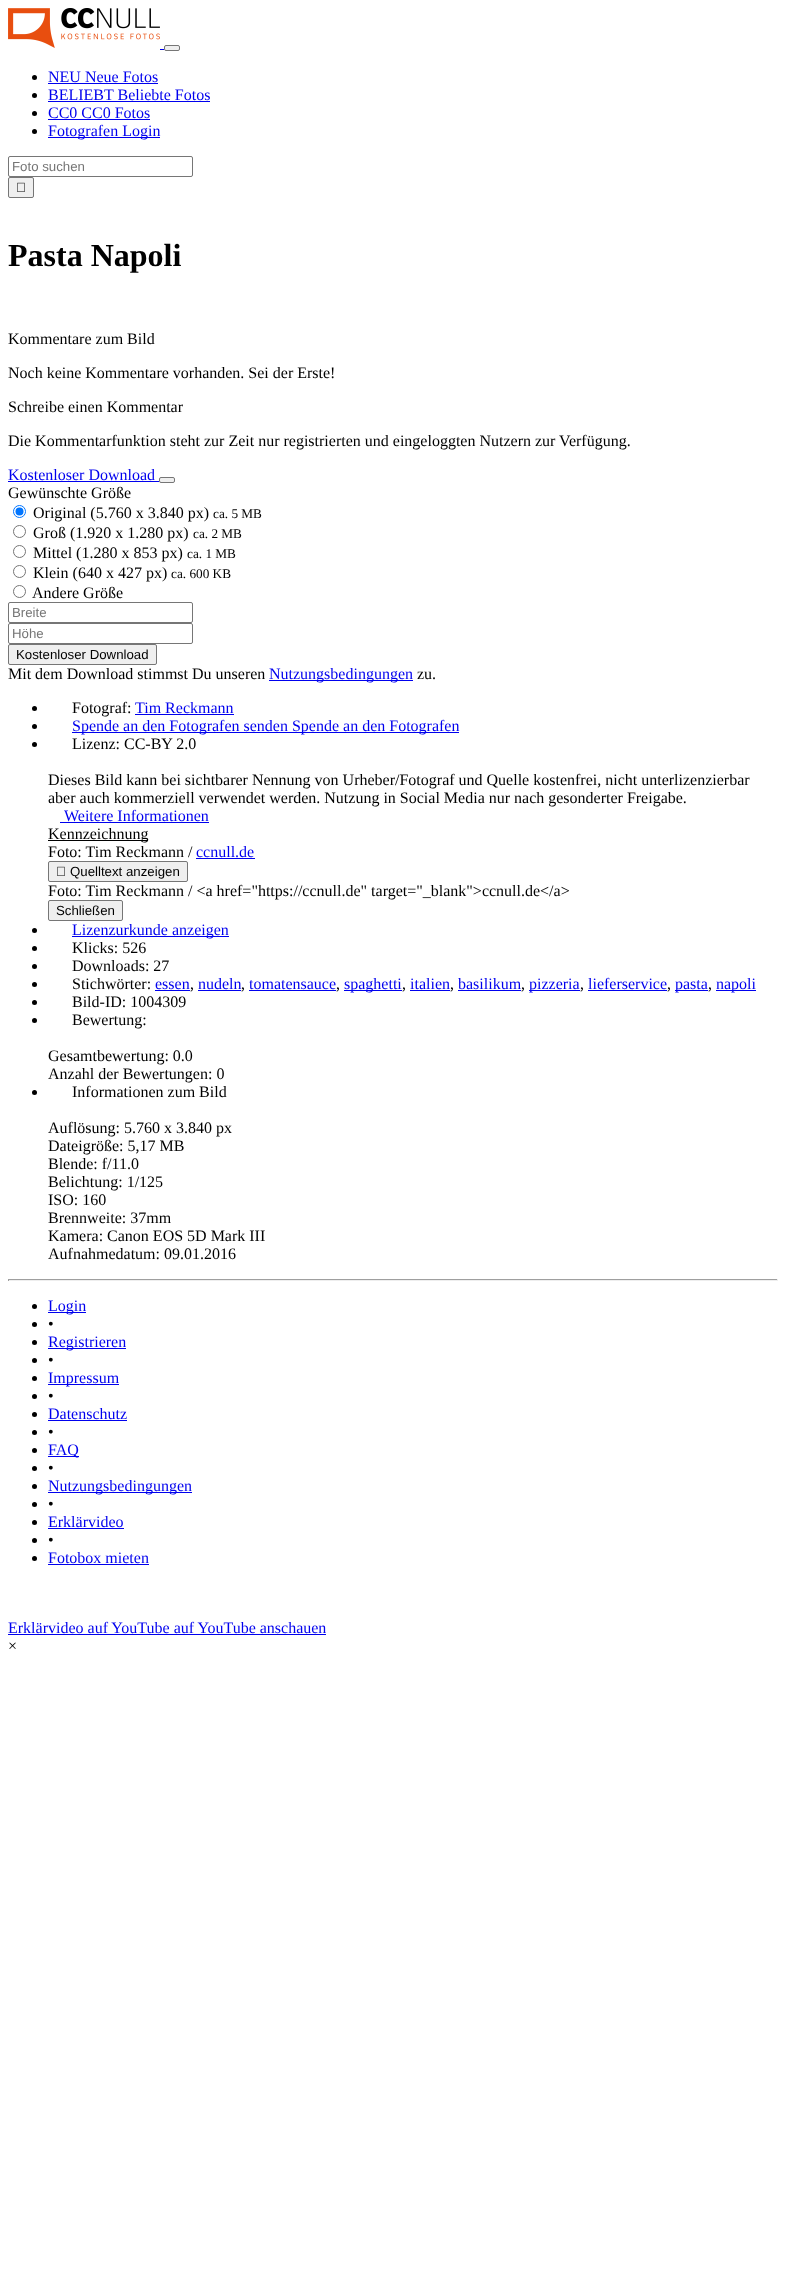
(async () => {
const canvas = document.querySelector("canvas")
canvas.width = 786
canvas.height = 2280
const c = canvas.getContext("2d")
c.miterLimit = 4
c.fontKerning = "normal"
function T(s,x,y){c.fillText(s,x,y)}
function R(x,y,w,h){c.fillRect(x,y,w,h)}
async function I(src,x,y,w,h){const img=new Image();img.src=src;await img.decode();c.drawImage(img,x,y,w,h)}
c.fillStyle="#fff"
R(0,0,786,2280)
await I("1.png",8,8,152,40)
c.fillStyle="#00e"
R(160,49,4,1)
c.fillStyle="#efefef"
c.beginPath()
c.roundRect(164.5,45.5,15,5,1.5)
c.fill()
c.strokeStyle="#767676"
c.stroke()
c.fillStyle="#000"
c.beginPath()
c.arc(34.5,77.5,2.5,0,7)
c.fill()
c.font="16px Liberation Serif"
c.fillStyle="#00e"
T("NEU Neue Fotos",48,82)
R(48,83,110,1)
c.fillStyle="#000"
c.beginPath()
c.arc(34.5,95.5,2.5,0,7)
c.fill()
c.fillStyle="#00e"
T("BELIEBT Beliebte Fotos",48,100)
R(48,101,162,1)
c.fillStyle="#000"
c.beginPath()
c.arc(34.5,113.5,2.5,0,7)
c.fill()
c.fillStyle="#00e"
T("CC0 CC0 Fotos",48,118)
R(48,119,102,1)
c.fillStyle="#000"
c.beginPath()
c.arc(34.5,131.5,2.5,0,7)
c.fill()
c.fillStyle="#00e"
R(48,137,112,1)
T("Fotografen Login",48,136)
c.beginPath()
c.roundRect(8.5,156.5,184,20,1.5)
c.stroke()
c.font="13.25px Liberation Sans"
c.fillStyle="#757575"
T("Foto suchen",12,171)
c.fillStyle="#efefef"
c.beginPath()
c.roundRect(8.5,177.5,25,20,1.5)
c.fill()
c.stroke()
await I("2.png",17,182,8,10)
c.font="bold 32px Liberation Serif"
c.fillStyle="#000"
T("Pasta Napoli",8,266)
c.font="16px Liberation Serif"
T("Kommentare zum Bild",8,344)
T("Noch keine Kommentare vorhanden. Sei der Erste!",8,378)
T("Schreibe einen Kommentar",8,412)
T("Die Kommentarfunktion steht zur Zeit nur registrierten und eingeloggten Nutzern zur Verfügung.",8,446)
c.fillStyle="#00e"
T("Kostenloser Download",8,480)
R(8,481,151,1)
c.fillStyle="#efefef"
c.beginPath()
c.roundRect(159.5,477.5,15,5,1.5)
c.fill()
c.stroke()
c.fillStyle="#000"
T("Gewünschte Größe",8,498)
c.beginPath()
c.arc(19.5,511.5,6,0,7)
c.strokeStyle="#0075ff"
c.stroke()
c.fillStyle="#0075ff"
c.beginPath()
c.arc(19.5,511.5,4,0,7)
c.fill()
c.fillStyle="#000"
T("Original (5.760 x 3.840 px)",33,518)
c.font="13.25px Liberation Serif"
T("ca. 5 MB",213,518)
c.beginPath()
c.arc(19.5,531.5,6,0,7)
c.strokeStyle="#767676"
c.stroke()
c.font="16px Liberation Serif"
T("Groß (1.920 x 1.280 px)",33,538)
c.font="13.25px Liberation Serif"
T("ca. 2 MB",193,538)
c.beginPath()
c.arc(19.5,551.5,6,0,7)
c.stroke()
c.font="16px Liberation Serif"
T("Mittel (1.280 x 853 px)",33,558)
c.font="13.25px Liberation Serif"
T("ca. 1 MB",187,558)
c.beginPath()
c.arc(19.5,571.5,6,0,7)
c.stroke()
c.font="16px Liberation Serif"
T("Klein (640 x 427 px)",33,578)
c.font="13.25px Liberation Serif"
T("ca. 600 KB",171,578)
c.beginPath()
c.arc(19.5,591.5,6,0,7)
c.stroke()
c.font="16px Liberation Serif"
T("Andere Größe",32,598)
c.beginPath()
c.roundRect(8.5,602.5,184,20,1.5)
c.stroke()
c.font="13.25px Liberation Sans"
c.fillStyle="#757575"
T("Breite",12,617)
c.beginPath()
c.roundRect(8.5,623.5,184,20,1.5)
c.stroke()
T("Höhe",12,638)
c.fillStyle="#efefef"
c.beginPath()
c.roundRect(8.5,644.5,148,20,1.5)
c.fill()
c.stroke()
c.fillStyle="#000"
T("Kostenloser Download",16,659)
c.font="16px Liberation Serif"
T("Mit dem Download stimmst Du unseren",8,679)
c.fillStyle="#00e"
R(269,680,144,1)
T("Nutzungsbedingungen",269,679)
c.fillStyle="#000"
T("zu.",417,679)
c.beginPath()
c.arc(34.5,708.5,2.5,0,7)
c.fill()
T("Fotograf:",72,713)
c.fillStyle="#00e"
T("Tim Reckmann",135,713)
R(135,714,99,1)
c.fillStyle="#000"
c.beginPath()
c.arc(34.5,726.5,2.5,0,7)
c.fill()
c.fillStyle="#00e"
R(72,732,387,1)
T("Spende an den Fotografen senden Spende an den Fotografen",72,731)
c.fillStyle="#000"
c.beginPath()
c.arc(34.5,744.5,2.5,0,7)
c.fill()
T("Lizenz: CC-BY 2.0",72,749)
T("Dieses Bild kann bei sichtbarer Nennung von Urheber/Fotograf und Quelle kostenfrei, nicht unterlizenzierbar",48,785)
T("aber auch kommerziell verwendet werden. Nutzung in Social Media nur nach gesonderter Freigabe.",48,803)
c.fillStyle="#00e"
T("Weitere Informationen",64,821)
R(60,822,149,1)
c.fillStyle="#000"
R(48,840,100,1)
T("Kennzeichnung",48,839)
T("Foto: Tim Reckmann /",48,857)
c.fillStyle="#00e"
T("ccnull.de",196,857)
R(196,858,59,1)
c.fillStyle="#efefef"
c.beginPath()
c.roundRect(48.5,861.5,139,20,1.5)
c.fill()
c.stroke()
await I("2.png",57,866,8,10)
c.font="13.25px Liberation Sans"
c.fillStyle="#000"
T("Quelltext anzeigen",70,876)
c.font="16px Liberation Serif"
T("Foto: Tim Reckmann / <a href=\"https://ccnull.de\" target=\"_blank\">ccnull.de<\/a>",48,896)
c.fillStyle="#efefef"
c.beginPath()
c.roundRect(48.5,900.5,74,20,1.5)
c.fill()
c.stroke()
c.font="13.25px Liberation Sans"
c.fillStyle="#000"
T("Schließen",56,915)
c.beginPath()
c.arc(34.5,930.5,2.5,0,7)
c.fill()
c.fillStyle="#00e"
R(72,936,157,1)
c.font="16px Liberation Serif"
T("Lizenzurkunde anzeigen",72,935)
c.fillStyle="#000"
c.beginPath()
c.arc(34.5,948.5,2.5,0,7)
c.fill()
T("Klicks: 526",72,953)
c.beginPath()
c.arc(34.5,966.5,2.5,0,7)
c.fill()
T("Downloads: 27",72,971)
c.beginPath()
c.arc(34.5,984.5,2.5,0,7)
c.fill()
T("Stichwörter:",72,989)
c.fillStyle="#00e"
T("essen",155,989)
R(155,990,35,1)
T("nudeln",198,989)
R(198,990,43,1)
T("tomatensauce",249,989)
R(249,990,87,1)
R(344,990,58,1)
T("spaghetti",344,989)
T("italien",410,989)
R(410,990,40,1)
T("basilikum",458,989)
R(458,990,63,1)
R(529,990,51,1)
T("pizzeria",529,989)
T("lieferservice",588,989)
R(588,990,79,1)
R(675,990,33,1)
T("pasta",675,989)
R(716,990,40,1)
T("napoli",716,989)
c.fillStyle="#000"
T(",",190,989)
T(",",241,989)
T(",",336,989)
T(",",402,989)
T(",",450,989)
T(",",521,989)
T(",",580,989)
T(",",667,989)
T(",",708,989)
c.beginPath()
c.arc(34.5,1002.5,2.5,0,7)
c.fill()
T("Bild-ID: 1004309",72,1007)
c.beginPath()
c.arc(34.5,1020.5,2.5,0,7)
c.fill()
T("Bewertung:",72,1025)
T("Gesamtbewertung: 0.0",48,1061)
T("Anzahl der Bewertungen: 0",48,1079)
c.beginPath()
c.arc(34.5,1092.5,2.5,0,7)
c.fill()
T("Informationen zum Bild",72,1097)
T("Auflösung: 5.760 x 3.840 px",48,1133)
T("Dateigröße: 5,17 MB",48,1151)
T("Blende: f/11.0",48,1169)
T("Belichtung: 1/125",48,1187)
T("ISO: 160",48,1205)
T("Brennweite: 37mm",48,1223)
T("Kamera: Canon EOS 5D Mark III",48,1241)
T("Aufnahmedatum: 09.01.2016",48,1259)
c.fillStyle="#9f9f9f"
R(8,1279,770,1)
c.fillStyle="#eee"
R(777,1279,1,2)
R(8,1280,770,1)
c.fillStyle="#9f9f9f"
R(8,1279,1,2)
c.fillStyle="#000"
c.beginPath()
c.arc(34.5,1306.5,2.5,0,7)
c.fill()
c.fillStyle="#00e"
R(48,1312,38,1)
T("Login",48,1311)
c.fillStyle="#000"
c.beginPath()
c.arc(34.5,1324.5,2.5,0,7)
c.fill()
T("•",48,1329)
c.beginPath()
c.arc(34.5,1342.5,2.5,0,7)
c.fill()
c.fillStyle="#00e"
R(48,1348,78,1)
T("Registrieren",48,1347)
c.fillStyle="#000"
c.beginPath()
c.arc(34.5,1360.5,2.5,0,7)
c.fill()
T("•",48,1365)
c.beginPath()
c.arc(34.5,1378.5,2.5,0,7)
c.fill()
c.fillStyle="#00e"
R(48,1384,71,1)
T("Impressum",48,1383)
c.fillStyle="#000"
c.beginPath()
c.arc(34.5,1396.5,2.5,0,7)
c.fill()
T("•",48,1401)
c.beginPath()
c.arc(34.5,1414.5,2.5,0,7)
c.fill()
c.fillStyle="#00e"
T("Datenschutz",48,1419)
R(48,1420,79,1)
c.fillStyle="#000"
c.beginPath()
c.arc(34.5,1432.5,2.5,0,7)
c.fill()
T("•",48,1437)
c.beginPath()
c.arc(34.5,1450.5,2.5,0,7)
c.fill()
c.fillStyle="#00e"
R(48,1456,31,1)
T("FAQ",48,1455)
c.fillStyle="#000"
c.beginPath()
c.arc(34.5,1468.5,2.5,0,7)
c.fill()
T("•",48,1473)
c.beginPath()
c.arc(34.5,1486.5,2.5,0,7)
c.fill()
c.fillStyle="#00e"
R(48,1492,144,1)
T("Nutzungsbedingungen",48,1491)
c.fillStyle="#000"
c.beginPath()
c.arc(34.5,1504.5,2.5,0,7)
c.fill()
T("•",48,1509)
c.beginPath()
c.arc(34.5,1522.5,2.5,0,7)
c.fill()
c.fillStyle="#00e"
T("Erklärvideo",48,1527)
R(48,1528,76,1)
c.fillStyle="#000"
c.beginPath()
c.arc(34.5,1540.5,2.5,0,7)
c.fill()
T("•",48,1545)
c.beginPath()
c.arc(34.5,1558.5,2.5,0,7)
c.fill()
c.fillStyle="#00e"
T("Fotobox mieten",48,1563)
R(48,1564,101,1)
T("Erklärvideo auf YouTube auf YouTube anschauen",8,1633)
R(8,1634,318,1)
c.fillStyle="#000"
T("×",8,1651)
})()
